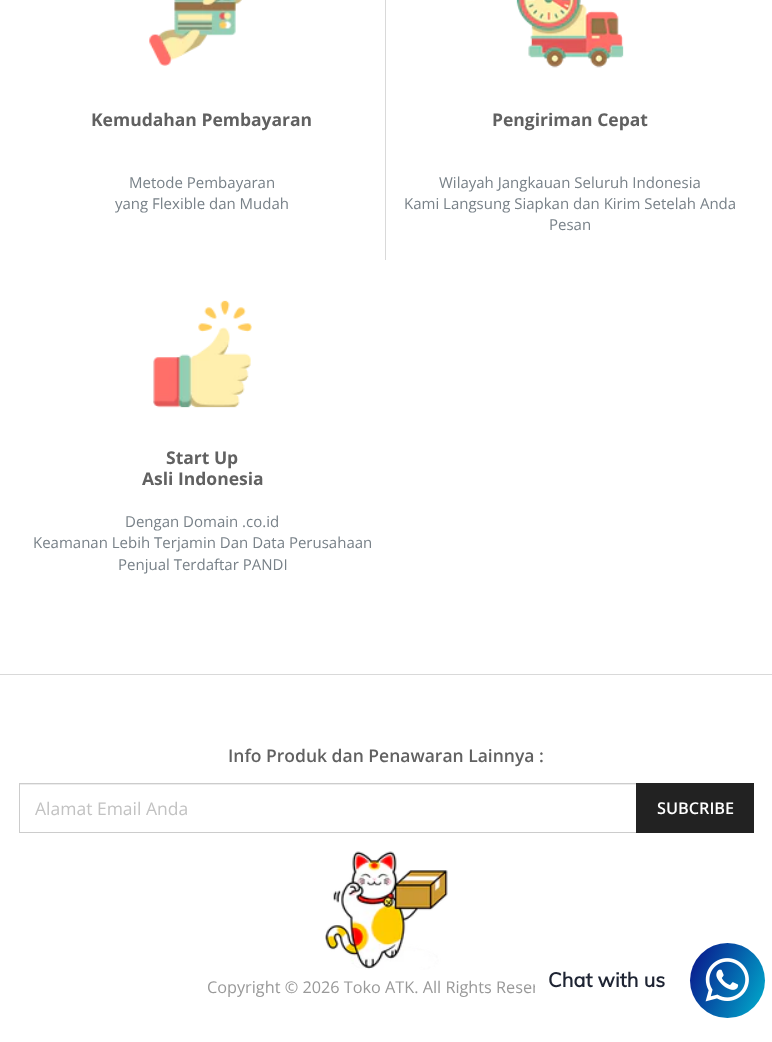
(async () => {
const canvas = document.querySelector("canvas")
canvas.width = 772
canvas.height = 1042
const c = canvas.getContext("2d")
c.miterLimit = 4
c.fontKerning = "normal"
function T(s,x,y){c.fillText(s,x,y)}
function R(x,y,w,h){c.fillRect(x,y,w,h)}
function Q(x,y,w,h,r){c.beginPath();c.roundRect(x,y,w,h,r);c.fill()}
async function I(src,x,y,w,h){const img=new Image();img.src=src;await img.decode();c.drawImage(img,x,y,w,h)}
let gradient
c.fillStyle="#fff"
R(0,0,772,1042)
c.fillStyle="#d9d9d9"
R(0,674,772,1)
R(385,0,1,260)
await I("1.png",149,0,93,66)
c.font="bold 17.5px Open Sans"
c.fillStyle="#616161"
T("Kemudahan Pembayaran",91,126)
c.font="15px Open Sans"
c.fillStyle="#788188"
T("Metode Pembayaran",129,188)
T("yang Flexible dan Mudah",115,209)
await I("2.png",516,0,108,68)
c.font="bold 17.5px Open Sans"
c.fillStyle="#616161"
T("Pengiriman Cepat",492,126)
c.font="15px Open Sans"
c.fillStyle="#788188"
T("Wilayah Jangkauan Seluruh Indonesia",439,188)
T("Kami Langsung Siapkan dan Kirim Setelah Anda",404,209)
T("Pesan",549,230)
await I("3.png",153,300,99,108)
c.font="bold 17.5px Open Sans"
c.fillStyle="#616161"
T("Start Up",166,464)
T("Asli Indonesia",142,485)
c.font="15px Open Sans"
c.fillStyle="#788188"
T("Dengan Domain .co.id",125,527)
T("Keamanan Lebih Terjamin Dan Data Perusahaan",33,548)
T("Penjual Terdaftar PANDI",118,570)
c.font="600 17.5px Open Sans"
c.fillStyle="#616161"
T("Info Produk dan Penawaran Lainnya :",228,762)
c.fillStyle="#ececec"
R(20,784,616,1)
c.strokeStyle="#ccc"
c.strokeRect(19.5,783.5,734,49)
c.font="17.5px Open Sans"
c.fillStyle="#c2c2c2"
T("Alamat Email Anda",35,815)
c.fillStyle="#222"
R(636,783,118,50)
c.font="600 16.25px Open Sans"
c.fillStyle="#fff"
T("SUBCRIBE",657,814)
await I("4.png",325,851,123,119)
c.font="16.25px Open Sans"
c.fillStyle="#999"
T("Copyright © 2026 Toko ATK. All Rights Reser",207,993)
gradient = c.createLinearGradient(682,959,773,1001)
gradient.addColorStop(0,"#0a0e88")
gradient.addColorStop(1,"#00b1ce")
c.fillStyle = gradient
c.beginPath()
c.arc(727.5,980.5,37.5,0,7)
c.fill()
c.fillStyle="#fff"
Q(535,955,143,49,10)
c.font="bold 20px Muli"
c.fillStyle="#1e2433"
T("Chat with us",548,987)
await I("5.png",705,958,44,44)
})()
